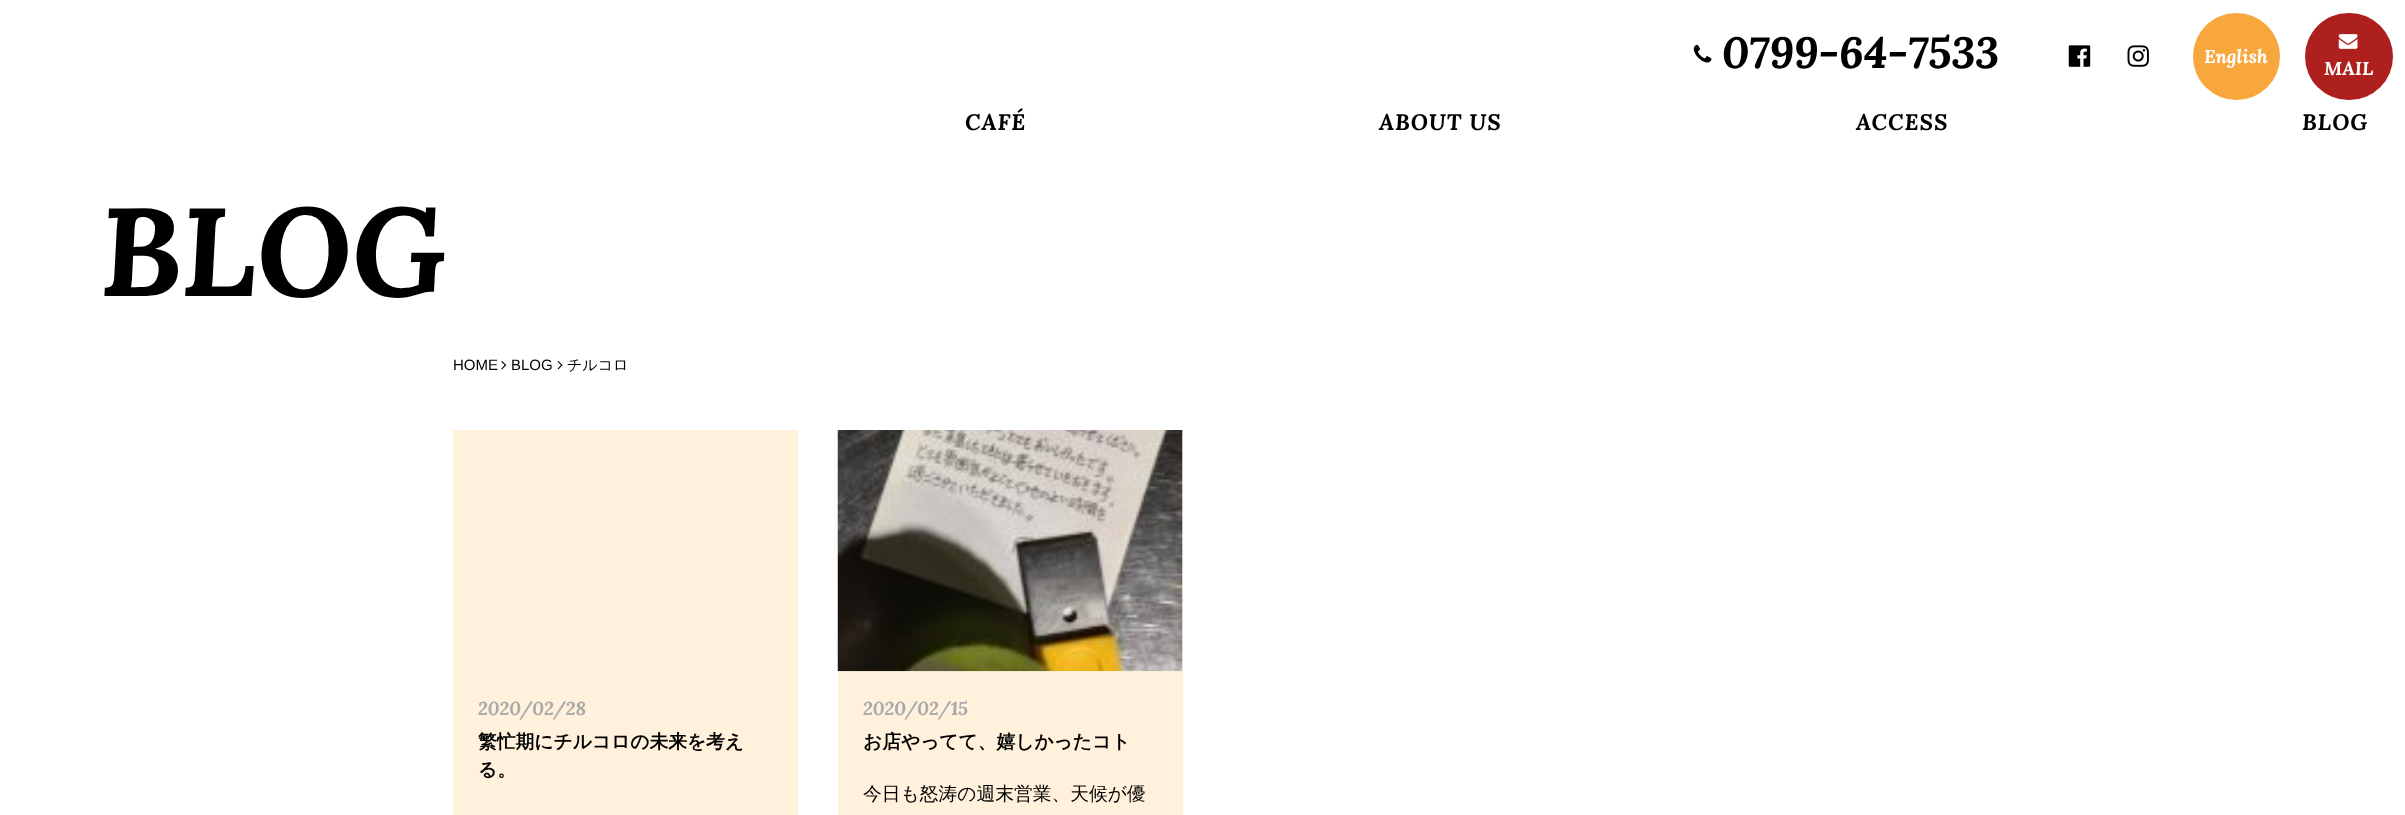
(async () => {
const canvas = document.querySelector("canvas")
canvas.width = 2405
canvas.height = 815
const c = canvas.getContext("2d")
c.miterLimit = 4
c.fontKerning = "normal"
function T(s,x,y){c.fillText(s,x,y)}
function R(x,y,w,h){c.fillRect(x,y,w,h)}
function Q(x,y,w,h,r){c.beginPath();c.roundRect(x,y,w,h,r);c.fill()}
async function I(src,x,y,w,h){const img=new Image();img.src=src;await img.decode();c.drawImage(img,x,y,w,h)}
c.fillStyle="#fff"
R(0,0,2405,815)
await I("1.png",1693,44,19,19)
c.font="italic bold 43.75px Lora"
c.fillStyle="#000"
T("0799-64-7533",1722,68)
await I("2.png",2068,45,23,22)
await I("3.png",2127,45,22,22)
c.fillStyle="#f8a73c"
c.beginPath()
c.arc(2236.5,56.5,43.5,0,7)
c.fill()
c.font="italic bold 18.75px Lora"
c.fillStyle="#fff"
T("English",2204,63)
c.fillStyle="#ad201d"
Q(2305,13,88,87,43.5)
await I("4.png",2338,34,20,15)
c.fillStyle="#fff"
T("MAIL",2324,75)
c.letterSpacing="1px"
c.font="italic bold 22.5px Lora"
c.fillStyle="#000"
T("CAFÉ",965,130)
T("ABOUT US",1379,130)
T("ACCESS",1856,130)
T("BLOG",2302,130)
c.letterSpacing="0px"
c.font="italic bold 125px Lora"
T("BLOG",100,296)
c.font="15px Liberation Sans"
T("HOME",453,370)
await I("5.png",501,361,6,9)
T("BLOG",511,370)
await I("6.png",557,361,6,9)
c.font="500 15px WenQuanYi Zen Hei"
T("チルコロ",567,370)
c.fillStyle="#fff1db"
R(453,430,345,385)
c.font="italic bold 18.75px Lora"
c.fillStyle="#aaa"
T("2020/02/28",478,715)
c.font="bold 18.75px WenQuanYi Zen Hei"
c.fillStyle="#000"
T("繁忙期にチルコロの未来を考え",478,748)
T("る。",478,776)
c.fillStyle="#fff1db"
R(838,430,345,385)
await I("7.png",837,430,346,242)
c.font="italic bold 18.75px Lora"
c.fillStyle="#aaa"
T("2020/02/15",863,715)
c.font="bold 18.75px WenQuanYi Zen Hei"
c.fillStyle="#000"
T("お店やってて、嬉しかったコト",863,748)
c.font="500 18.75px WenQuanYi Zen Hei"
T("今日も怒涛の週末営業、天候が優",863,800)
})()
